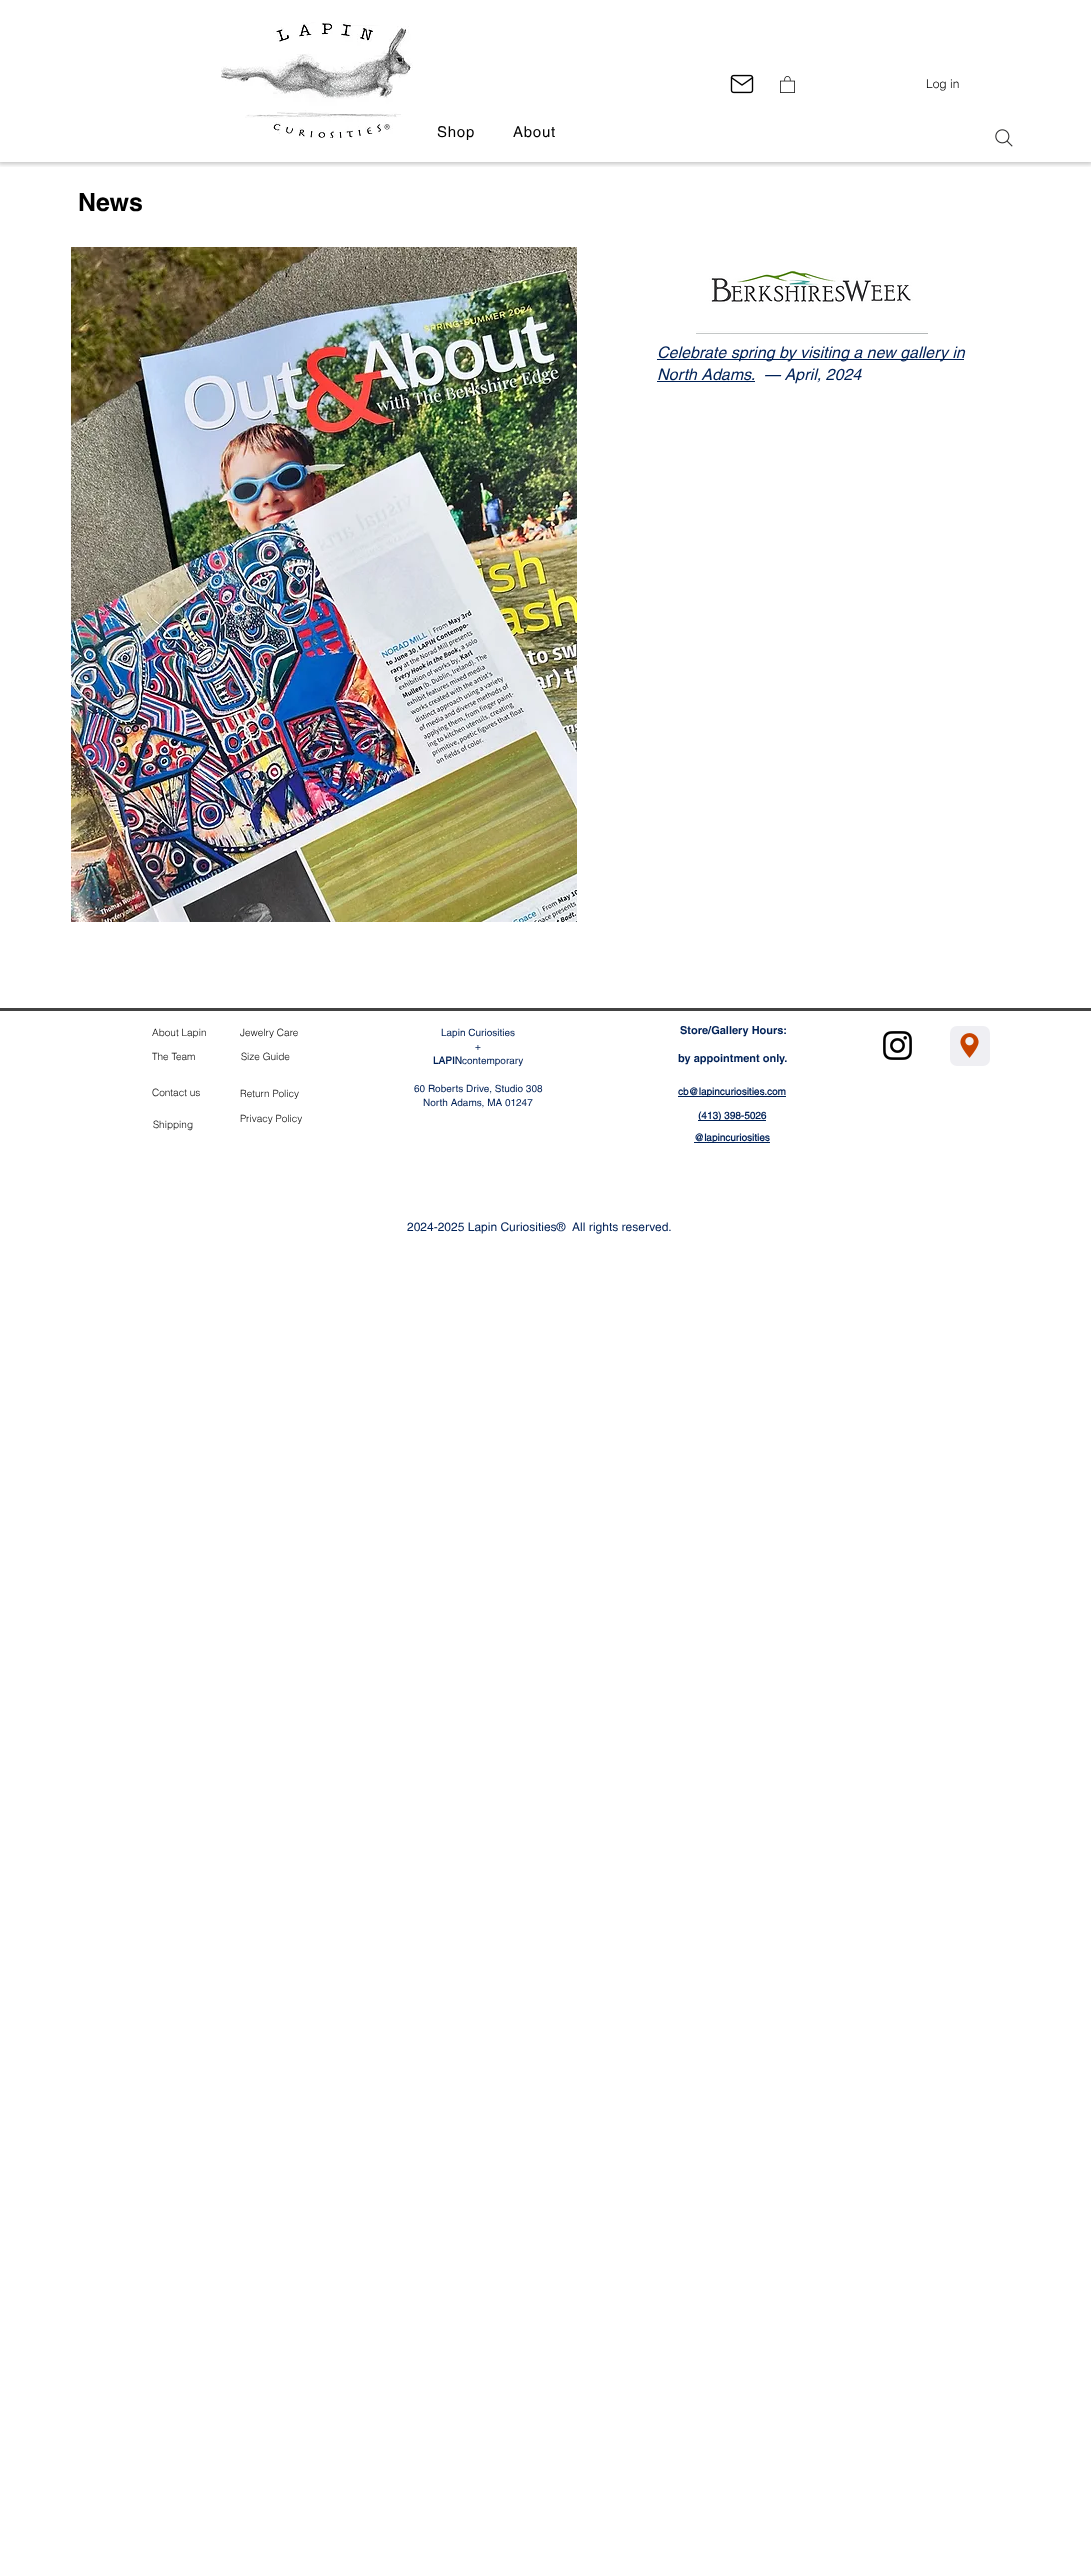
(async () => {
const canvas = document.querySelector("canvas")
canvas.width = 1091
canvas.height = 2569
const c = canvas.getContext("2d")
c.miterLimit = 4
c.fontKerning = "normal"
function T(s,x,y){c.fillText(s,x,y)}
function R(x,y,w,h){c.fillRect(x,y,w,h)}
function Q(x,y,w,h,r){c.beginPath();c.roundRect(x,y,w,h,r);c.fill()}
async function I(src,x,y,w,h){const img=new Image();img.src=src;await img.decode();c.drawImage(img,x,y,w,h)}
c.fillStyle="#fff"
R(0,0,1091,2569)
c.save()
c.beginPath()
c.rect(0,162,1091,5)
c.clip()
c.fillStyle="#0000003d"
c.filter="blur(2.5px)"
c.beginPath()
c.rect(-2,-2,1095,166)
c.fill()
c.filter="none"
c.restore()
await I("1.png",221,22,192,116)
await I("2.png",730,74,24,20)
await I("3.png",780,76,15,17)
c.font="300 12px helvetica"
c.fillStyle="#000"
T("Log in",926,88)
c.letterSpacing="0.75px"
c.font="15px helvetica"
T("Shop",437,137)
T("About",513,137)
await I("4.png",995,129,18,18)
c.letterSpacing="0px"
c.font="bold 25px helvetica"
T("News",78,211)
await I("5.png",71,247,506,675)
await I("6.png",696,270,232,64)
c.fillStyle="#002157"
R(657,359,307,1)
c.font="italic 16px helvetica"
T("Celebrate spring by visiting a new gallery in",657,358)
T("North Adams.",657,380)
R(657,381,98,1)
T("— April, 2024",764,380)
c.fillStyle="#424242"
R(0,1008,1091,3)
c.font="300 10px helvetica"
c.fillStyle="#000"
T("About Lapin",152,1036)
T("Jewelry Care",240,1036)
c.font="10px helvetica"
c.fillStyle="#002157"
T("Lapin Curiosities",441,1036)
T("+",475,1050)
c.font="bold 10px 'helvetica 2'"
T("LAPIN",433,1064)
c.font="10px helvetica"
T("contemporary",462,1064)
T("60 Roberts Drive, Studio 308",414,1092)
T("North Adams, MA 01247",423,1106)
c.font="bold 11px helvetica"
T("Store/Gallery Hours:",680,1034)
T("by appointment only.",678,1062)
await I("7.png",883,1031,29,29)
c.fillStyle="#efeff3"
Q(950,1026,40,40,7)
await I("8.png",960,1033,19,25)
c.font="300 10px helvetica"
c.fillStyle="#000"
T("The Team",152,1060)
T("Size Guide",241,1060)
T("Contact us",152,1096)
T("Return Policy",240,1097)
c.fillStyle="#002157"
R(678,1096,108,1)
c.font="bold 10px 'helvetica 2'"
T("cb@lapincuriosities.com",678,1095)
R(698,1120,68,1)
T("(413) 398-5026",698,1119)
R(694,1142,76,1)
T("@lapincuriosities",694,1141)
c.font="300 10px helvetica"
c.fillStyle="#000"
T("Shipping",153,1128)
T("Privacy Policy",240,1122)
c.font="12px helvetica"
c.fillStyle="#002157"
T("2024-2025 Lapin Curiosities®  All rights reserved.",407,1231)
})()
